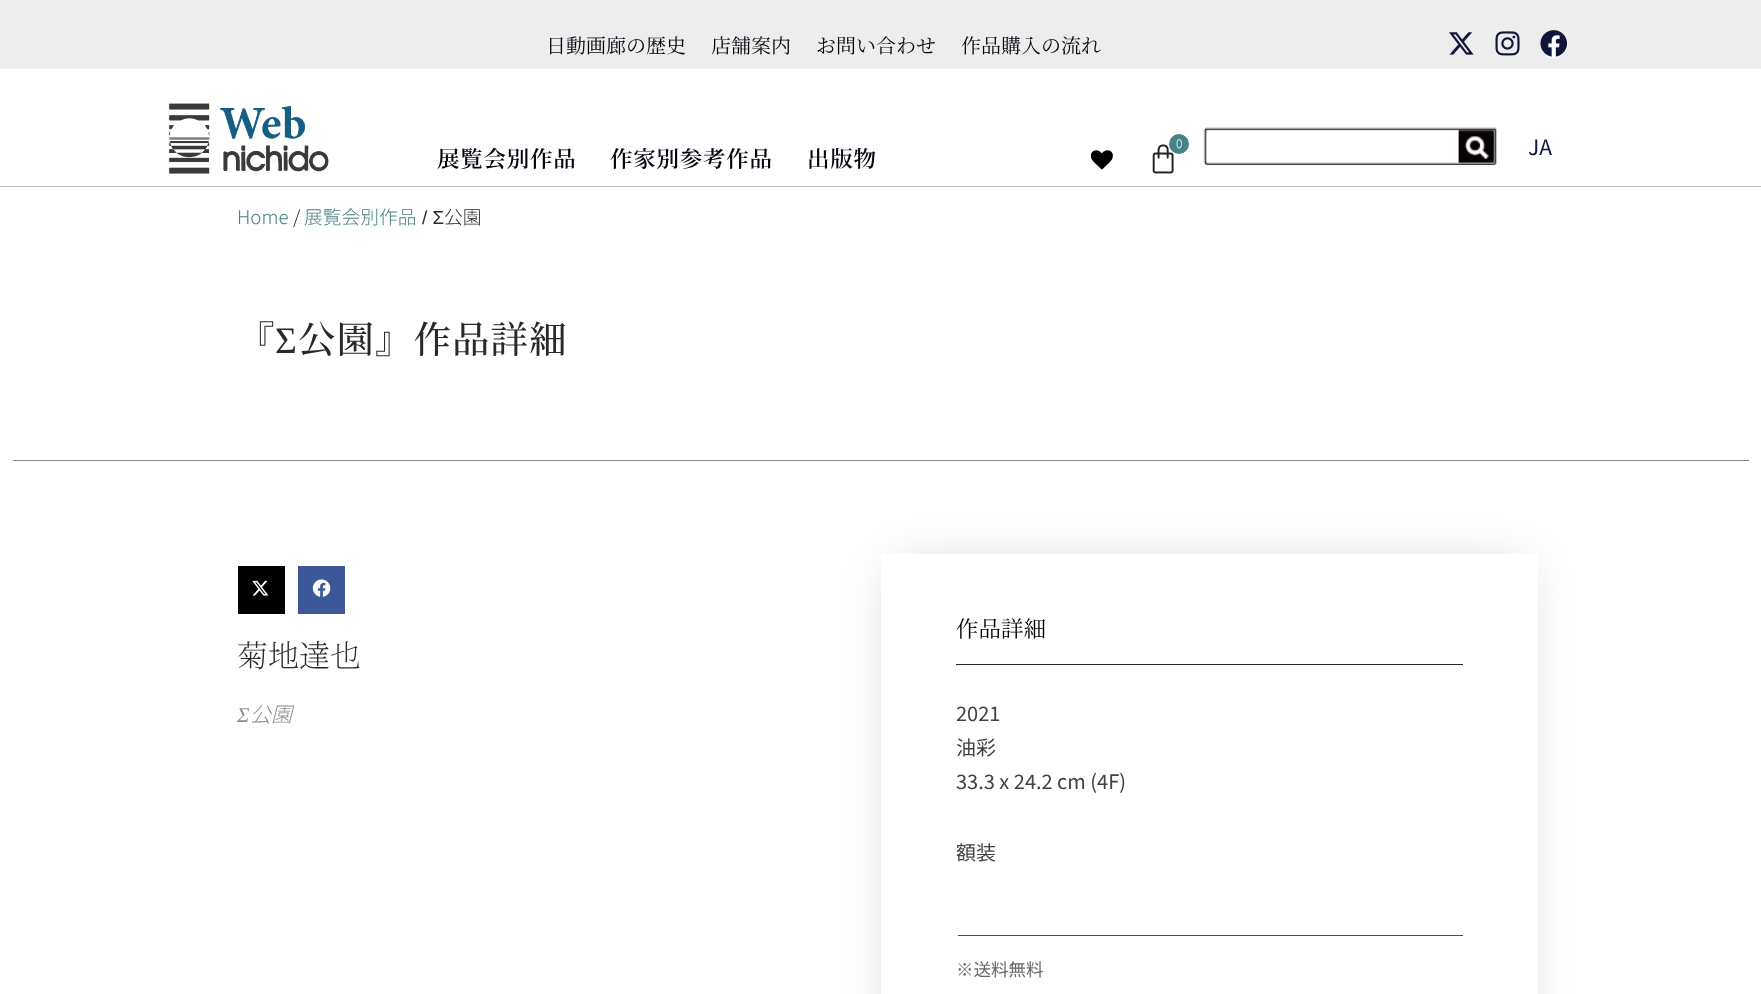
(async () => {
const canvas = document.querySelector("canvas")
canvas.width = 1761
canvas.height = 994
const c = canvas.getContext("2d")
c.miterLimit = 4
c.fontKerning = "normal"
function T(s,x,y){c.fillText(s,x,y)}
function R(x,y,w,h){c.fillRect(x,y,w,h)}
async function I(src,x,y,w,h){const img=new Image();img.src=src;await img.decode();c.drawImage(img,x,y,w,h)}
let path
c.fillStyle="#fff"
R(0,0,1761,994)
c.fillStyle="#fbfbfb"
R(0,68,1761,1)
path = new Path2D("M0 68h1761")
c.strokeStyle="#e4e4e4"
c.lineWidth=1.2
c.setLineDash([1.25,1.25])
c.stroke(path)
c.fillStyle="#ededed"
R(0,0,1761,68)
c.font="20px Noto Serif JP"
c.fillStyle="#050510"
T("日動画廊の歴史",546,53)
T("店舗案内",711,53)
T("お問い合わせ",816,53)
T("作品購入の流れ",961,53)
await I("1.png",1449,32,25,23)
await I("2.png",1495,31,25,25)
c.fillStyle="#fff"
c.beginPath()
c.arc(1554,44,14,0,7)
c.fill()
await I("3.png",1540,30,28,27)
c.fillStyle="#bfbfbf"
R(0,186,1761,1)
await I("4.png",168,103,161,71)
c.letterSpacing="0.75px"
c.font="600 22.5px Noto Serif JP"
c.fillStyle="#050510"
T("展覧会別作品",437,167)
T("作家別参考作品",610,167)
T("出版物",807,167)
await I("5.png",1090,150,23,20)
await I("6.png",1152,144,22,30)
c.fillStyle="#478384"
c.beginPath()
c.arc(1179,144,10,0,7)
c.fill()
c.letterSpacing="0px"
c.font="300 12px Noto Sans JP"
c.fillStyle="#fff"
T("0",1176,148)
await I("7.png",1203,127,294,38)
c.font="21px Noto Sans JP"
c.fillStyle="#11143b"
T("JA",1528,155)
c.font="300 18.75px Noto Sans JP"
c.fillStyle="#478384"
T("Home",237,224)
c.fillStyle="#292929"
T("/",293,224)
c.fillStyle="#478384"
T("展覧会別作品",304,224)
c.font="18.75px Liberation Sans"
c.fillStyle="#292929"
T("/ Σ",422,224)
c.font="300 18.75px Noto Sans JP"
T("公園",444,224)
c.letterSpacing="1px"
c.font="500 37.5px Noto Serif JP"
T("『",237,353)
c.font="37.5px Liberation Serif"
T("Σ",275,353)
c.font="500 37.5px Noto Serif JP"
T("公園』作品詳細",298,353)
c.fillStyle="#858585"
R(13,460,1736,1)
c.fillStyle="#000"
R(238,566,47,48)
await I("8.png",252,580,17,16)
c.fillStyle="#3b5998"
R(298,566,47,48)
await I("9.png",312,579,19,18)
c.letterSpacing="0px"
c.font="200 31px Noto Serif JP"
c.fillStyle="#292929"
T("菊地達也",237,667)
c.font="italic 21px Liberation Serif"
c.fillStyle="#8f8c8c"
T("Σ",237,722)
c.font="italic 300 21px Noto Sans JP"
T("公園",250,722)
c.fillStyle="#0000002b"
c.filter="blur(25px)"
c.beginPath()
c.rect(894,566,631,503)
c.fill()
c.filter="none"
c.fillStyle="#fff"
R(881,554,657,440)
c.fillStyle="#272626"
R(956,664,507,1)
c.font="22.5px Noto Serif JP"
c.fillStyle="#080404"
T("作品詳細",956,637)
c.font="20px Noto Sans JP"
c.fillStyle="#424242"
T("2021",956,721)
T("油彩",956,755)
T("33.3 x 24.2 cm (4F)",956,789)
T("額装",956,860)
c.fillStyle="#4a4a4a"
R(958,935,505,1)
c.font="17.5px Noto Sans JP"
c.fillStyle="#676767"
T("※送料無料",956,976)
})()
